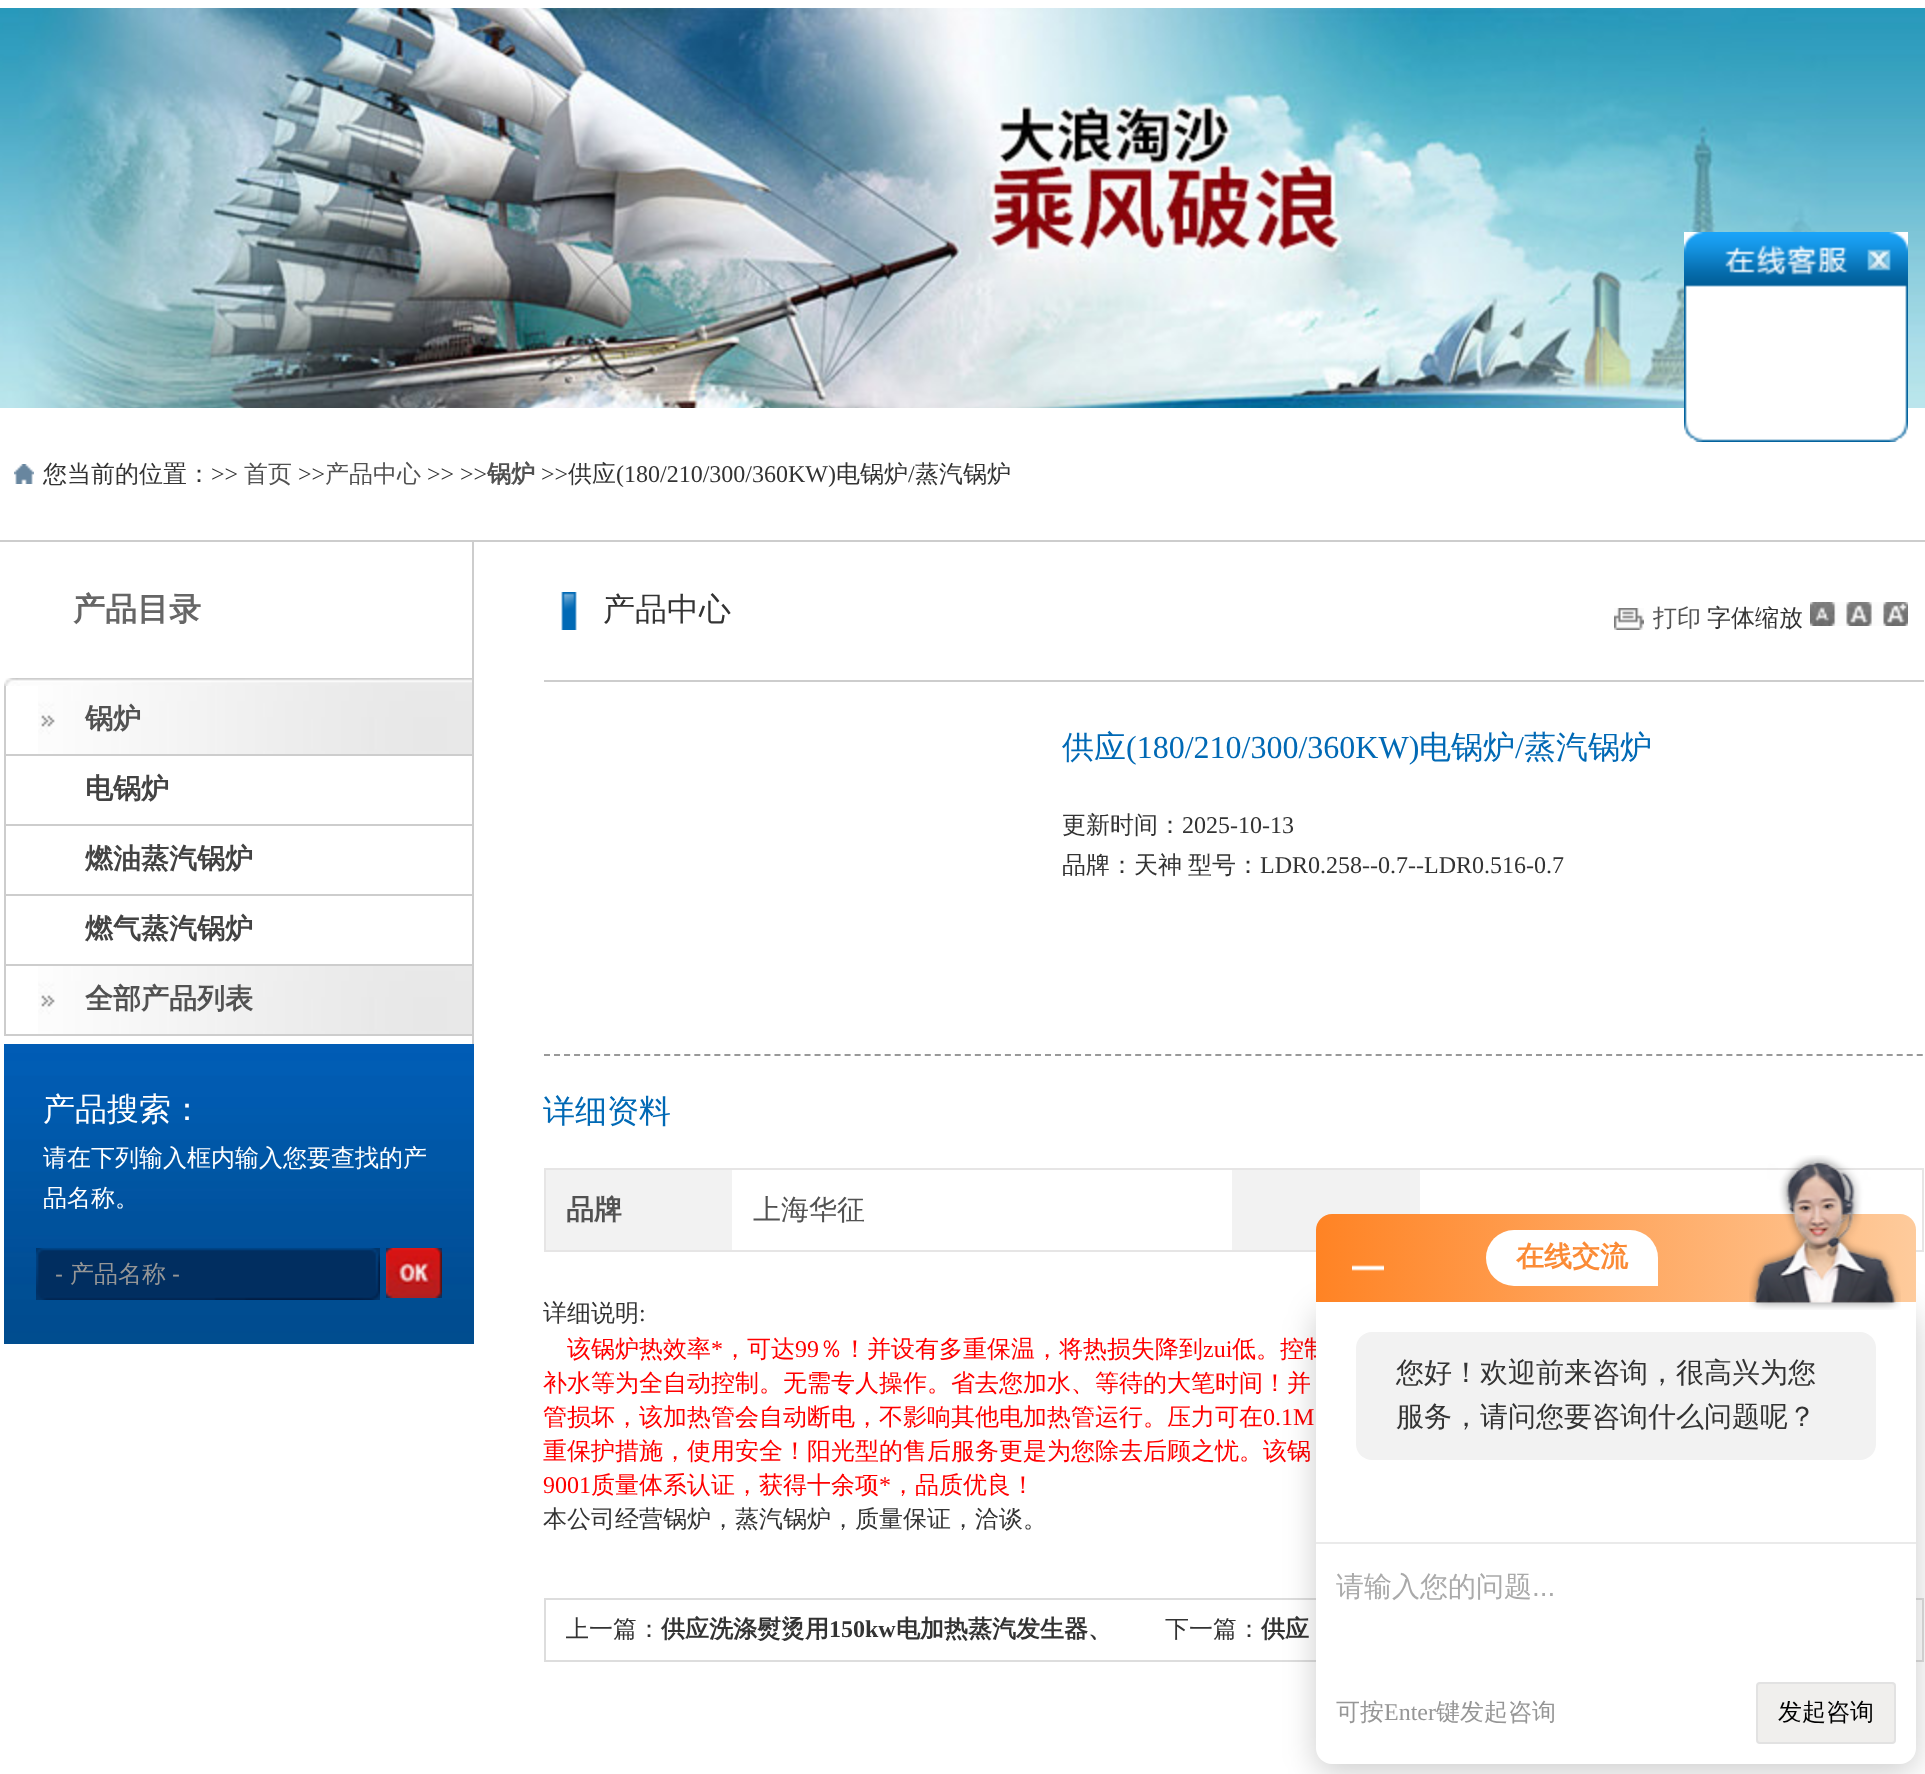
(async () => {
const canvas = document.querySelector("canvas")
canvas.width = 1925
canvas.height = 1774
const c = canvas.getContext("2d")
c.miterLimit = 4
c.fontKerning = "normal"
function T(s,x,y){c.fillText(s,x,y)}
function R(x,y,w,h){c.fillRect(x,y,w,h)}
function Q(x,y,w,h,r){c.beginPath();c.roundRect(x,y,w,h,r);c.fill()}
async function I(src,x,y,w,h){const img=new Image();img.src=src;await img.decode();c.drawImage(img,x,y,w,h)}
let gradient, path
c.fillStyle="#fff"
R(0,0,1925,1774)
await I("1.png",0,8,1925,400)
await I("2.png",1684,232,224,98)
await I("3.png",1684,330,224,80)
await I("4.png",1684,410,224,32)
c.fillStyle="#cdcdcd"
R(0,540,1925,2)
await I("5.png",14,464,20,20)
c.font="500 24px WenQuanYi Zen Hei"
c.fillStyle="#333"
T("您当前的位置：",43,482)
c.font="24px Liberation Serif"
T(">>",211,482)
c.font="500 24px WenQuanYi Zen Hei"
c.fillStyle="#525252"
T("首页",244,482)
c.font="24px Liberation Serif"
c.fillStyle="#333"
T(">>",298,482)
c.font="500 24px WenQuanYi Zen Hei"
c.fillStyle="#525252"
T("产品中心",325,482)
c.font="24px Liberation Serif"
c.fillStyle="#333"
T(">> >>",427,482)
c.font="bold 24px WenQuanYi Zen Hei"
c.fillStyle="#525252"
T("锅炉",487,482)
c.font="24px Liberation Serif"
c.fillStyle="#333"
T(">>",541,482)
c.font="500 24px WenQuanYi Zen Hei"
T("供应",568,482)
c.font="24px Liberation Serif"
T("(180/210/300/360KW)",616,482)
c.font="500 24px WenQuanYi Zen Hei"
T("电锅炉",836,482)
c.font="24px Liberation Serif"
T("/",908,482)
c.font="500 24px WenQuanYi Zen Hei"
T("蒸汽锅炉",915,482)
c.fillStyle="#cdcdcd"
R(472,542,2,502)
c.font="bold 32px WenQuanYi Zen Hei"
c.fillStyle="#666"
T("产品目录",73,620)
await I("6.png",4,678,468,8)
c.fillStyle="#cdcdcd"
R(4,686,2,350)
await I("7.png",38,686,434,68)
R(6,754,466,2)
c.font="bold 28px WenQuanYi Zen Hei"
c.fillStyle="#525252"
T("锅炉",85,728)
c.fillStyle="#cdcdcd"
R(6,824,466,2)
c.fillStyle="#434343"
T("电锅炉",85,798)
c.fillStyle="#cdcdcd"
R(6,894,466,2)
c.fillStyle="#434343"
T("燃油蒸汽锅炉",85,868)
c.fillStyle="#cdcdcd"
R(6,964,466,2)
c.fillStyle="#434343"
T("燃气蒸汽锅炉",85,938)
await I("7.png",38,966,434,68)
c.fillStyle="#cdcdcd"
R(6,1034,466,2)
c.fillStyle="#525252"
T("全部产品列表",85,1008)
await I("8.png",4,1044,470,300)
c.font="500 32px WenQuanYi Zen Hei"
c.fillStyle="#fff"
T("产品搜索：",43,1120)
c.font="500 24px WenQuanYi Zen Hei"
T("请在下列输入框内输入您要查找的产",43,1166)
T("品名称。",43,1206)
await I("9.png",36,1248,344,52)
c.font="24px Liberation Sans"
c.fillStyle="#969696"
T("-",55,1282)
c.font="500 24px WenQuanYi Zen Hei"
T("产品名称",70,1282)
c.font="24px Liberation Sans"
T("-",172,1282)
await I("10.png",386,1248,56,50)
c.fillStyle="#cdcdcd"
R(544,680,1380,2)
await I("11.png",561,592,16,38)
c.font="500 32px WenQuanYi Zen Hei"
c.fillStyle="#333"
T("产品中心",603,620)
await I("12.png",1614,608,30,22)
c.font="500 24px WenQuanYi Zen Hei"
c.fillStyle="#525252"
T("打印",1653,626)
c.fillStyle="#333"
T("字体缩放",1707,626)
await I("13.png",1810,602,98,24)
c.font="500 32px WenQuanYi Zen Hei"
c.fillStyle="#0069b5"
T("供应",1062,758)
c.font="32px Liberation Serif"
T("(180/210/300/360KW)",1126,758)
c.font="500 32px WenQuanYi Zen Hei"
T("电锅炉",1419,758)
c.font="32px Liberation Serif"
T("/",1515,758)
c.font="500 32px WenQuanYi Zen Hei"
T("蒸汽锅炉",1524,758)
c.font="500 24px WenQuanYi Zen Hei"
c.fillStyle="#333"
T("更新时间：",1062,833)
c.font="24px Liberation Serif"
T("2025-10-13",1182,833)
c.font="500 24px WenQuanYi Zen Hei"
T("品牌：天神",1062,873)
T("型号：",1188,873)
c.font="24px Liberation Serif"
T("LDR0.258--0.7--LDR0.516-0.7",1260,873)
path = new Path2D("M544 1055h1380")
c.strokeStyle="#999"
c.lineWidth=2
c.setLineDash([6,4.02])
c.stroke(path)
c.font="500 32px WenQuanYi Zen Hei"
c.fillStyle="#0069b5"
T("详细资料",543,1122)
c.fillStyle="#e6e5e5"
R(544,1168,1380,2)
R(1922,1168,2,84)
R(544,1168,2,84)
c.fillStyle="#f2f2f2"
R(1232,1170,188,80)
c.fillStyle="#e6e5e5"
R(544,1250,772,2)
c.fillStyle="#f2f2f2"
R(546,1170,186,80)
c.font="bold 28px WenQuanYi Zen Hei"
c.fillStyle="#525252"
T("品牌",566,1219)
c.font="500 28px WenQuanYi Zen Hei"
T("上海华征",753,1219)
c.fillStyle="#e6e5e5"
R(1916,1250,8,2)
c.font="500 24px WenQuanYi Zen Hei"
c.fillStyle="#333"
T("详细说明",543,1321)
c.font="24px Liberation Serif"
T(":",639,1321)
c.font="500 24px WenQuanYi Zen Hei"
c.fillStyle="#f00"
T("该锅炉热效率",567,1357)
c.font="24px Liberation Serif"
T("*",711,1357)
c.font="500 24px WenQuanYi Zen Hei"
T("，可达",723,1357)
c.font="24px Liberation Serif"
T("99",795,1357)
c.font="500 24px WenQuanYi Zen Hei"
T("％！并设有多重保温，将热损失降到",819,1357)
c.font="24px Liberation Serif"
T("zui",1203,1357)
c.font="500 24px WenQuanYi Zen Hei"
T("低。控制",1232,1357)
T("补水等为全自动控制。无需专人操作。省去您加水、等待的大笔时间！并",543,1391)
T("管损坏，该加热管会自动断电，不影响其他电加热管运行。压力可在",543,1425)
c.font="24px Liberation Serif"
T("0.1M",1263,1425)
c.font="500 24px WenQuanYi Zen Hei"
T("重保护措施，使用安全！阳光型的售后服务更是为您除去后顾之忧。该锅",543,1459)
c.font="24px Liberation Serif"
T("9001",543,1493)
c.font="500 24px WenQuanYi Zen Hei"
T("质量体系认证，获得十余项",591,1493)
c.font="24px Liberation Serif"
T("*",879,1493)
c.font="500 24px WenQuanYi Zen Hei"
T("，品质优良！",891,1493)
c.fillStyle="#333"
T("本公司经营锅炉，蒸汽锅炉，质量保证，洽谈。",543,1527)
c.strokeStyle="#ddd"
c.setLineDash([])
c.strokeRect(545,1599,1378,62)
c.save()
c.beginPath()
c.rect(566,1600,560,60)
c.clip()
T("上一篇：",565,1637)
c.restore()
c.font="bold 24px WenQuanYi Zen Hei"
T("供应洗涤熨烫用",661,1637)
c.font="bold 24px Liberation Serif"
T("150kw",829,1637)
c.font="bold 24px WenQuanYi Zen Hei"
T("电加热蒸汽发生器、",896,1637)
c.font="500 24px WenQuanYi Zen Hei"
T("下一篇：",1165,1637)
c.font="bold 24px WenQuanYi Zen Hei"
T("供应",1261,1637)
c.fillStyle="#00000033"
c.filter="blur(16px)"
c.beginPath()
c.roundRect(1316,1310,600,462,16)
c.fill()
c.filter="none"
gradient = c.createLinearGradient(1316,1258,1916,1258)
gradient.addColorStop(0,"#ff8324")
gradient.addColorStop(1,"#fecb9c")
c.fillStyle = gradient
c.beginPath()
c.roundRect(1316,1214,600,88,[16,16,0,0])
c.fill()
await I("14.png",1352,1265,32,6)
c.fillStyle="#fff"
c.beginPath()
c.roundRect(1486,1230,172,56,[28,28,0,28])
c.fill()
c.font="bold 28px WenQuanYi Zen Hei"
c.fillStyle="#fb8b36"
T("在线交流",1516,1266)
c.fillStyle="#fff"
c.beginPath()
c.roundRect(1316,1302,600,462,[0,0,16,16])
c.fill()
await I("15.png",1749,1155,152,155)
c.fillStyle="#f2f2f2"
Q(1356,1332,520,128,16)
c.font="500 28px WenQuanYi Zen Hei"
c.fillStyle="#333"
T("您好！欢迎前来咨询，很高兴为您",1396,1382)
T("服务，请问您要咨询什么问题呢？",1396,1426)
c.fillStyle="#eaeaea"
R(1316,1542,600,2)
c.fillStyle="#aaa"
T("请输入您的问题",1336,1596)
c.font="28px Liberation Sans"
T("...",1532,1596)
c.font="500 24px WenQuanYi Zen Hei"
c.fillStyle="#969696"
T("可按",1336,1720)
c.font="24px Liberation Serif"
T("Enter",1384,1720)
c.font="500 24px WenQuanYi Zen Hei"
T("键发起咨询",1436,1720)
c.fillStyle="#f0efed"
c.beginPath()
c.roundRect(1757,1683,138,60,3)
c.fill()
c.strokeStyle="#e2e2e2"
c.stroke()
c.fillStyle="#000"
T("发起咨询",1778,1720)
})()
